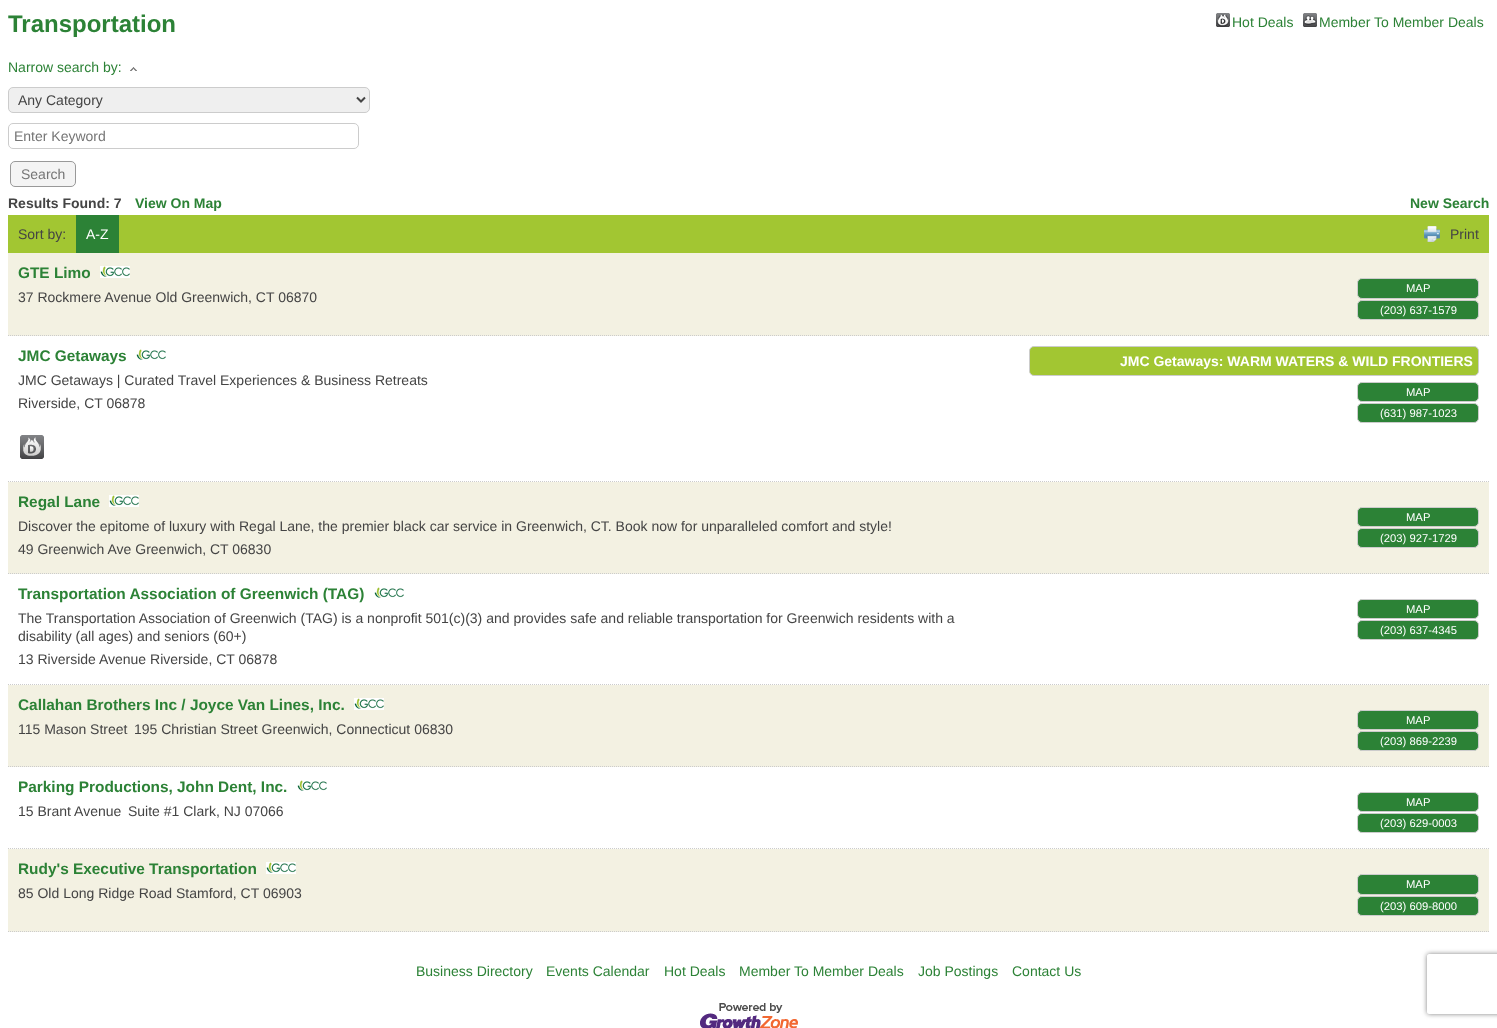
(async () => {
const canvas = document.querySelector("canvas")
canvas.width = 1497
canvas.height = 1028
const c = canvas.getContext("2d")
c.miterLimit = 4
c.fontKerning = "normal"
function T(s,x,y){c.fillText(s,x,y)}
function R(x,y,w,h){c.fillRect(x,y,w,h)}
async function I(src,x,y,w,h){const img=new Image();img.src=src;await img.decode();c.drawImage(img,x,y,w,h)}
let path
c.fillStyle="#fff"
R(0,0,1497,1028)
c.font="bold 24px Liberation Sans"
c.fillStyle="#2c8236"
T("Transportation",8,32)
await I("1.png",1216,13,14,14)
c.font="14px Liberation Sans"
T("Hot Deals",1232,27)
await I("2.png",1303,13,14,14)
T("Member To Member Deals",1319,27)
T("Narrow search by:",8,72)
await I("3.png",130,67,7,4)
c.fillStyle="#efefef"
c.beginPath()
c.roundRect(8.5,87.5,361,25,4.5)
c.fill()
c.strokeStyle="#ccc"
c.stroke()
path = new Path2D("M357 97.5l4 4l4-4")
c.strokeStyle="#444"
c.lineWidth=2
c.stroke(path)
c.fillStyle="#444"
T("Any Category",18,105)
c.beginPath()
c.roundRect(8.5,123.5,350,25,4.5)
c.strokeStyle="#ccc"
c.lineWidth=1
c.stroke()
c.fillStyle="#757575"
T("Enter Keyword",14,141)
c.fillStyle="#f4f4f4"
c.beginPath()
c.roundRect(10.5,161.5,65,25,4.5)
c.fill()
c.strokeStyle="#999"
c.stroke()
c.fillStyle="#757575"
T("Search",21,179)
c.font="bold 14px Liberation Sans"
c.fillStyle="#444"
T("Results Found: 7",8,208)
c.fillStyle="#2c8236"
T("View On Map",135,208)
T("New Search",1410,208)
c.fillStyle="#a2c632"
R(8,215,1481,38)
c.font="14px Liberation Sans"
c.fillStyle="#444"
T("Sort by:",18,239)
c.fillStyle="#2c8236"
R(76,215,43,38)
c.fillStyle="#fff"
T("A-Z",86,239)
await I("4.png",1424,226,16,16)
c.fillStyle="#444"
T("Print",1450,239)
c.fillStyle="#f3f1e2"
R(8,253,1481,83)
path = new Path2D("M8 335.5h1481")
c.strokeStyle="#ccc"
c.setLineDash([1,1])
c.stroke(path)
c.font="bold 15.4px Liberation Sans"
c.fillStyle="#2c8236"
T("GTE Limo",18,278)
await I("5.png",100,266,30,12)
c.font="14px Liberation Sans"
c.fillStyle="#444"
T("37 Rockmere Avenue Old Greenwich, CT 06870",18,302)
c.fillStyle="#2c8236"
c.beginPath()
c.roundRect(1357.5,278.5,121,20,4.5)
c.fill()
c.setLineDash([])
c.stroke()
c.font="11.25px Liberation Sans"
c.fillStyle="#fff"
T("MAP",1406,292)
c.fillStyle="#2c8236"
c.beginPath()
c.roundRect(1357.5,300.5,121,19,4.5)
c.fill()
c.stroke()
c.fillStyle="#fff"
T("(203) 637-1579",1380,314)
path = new Path2D("M8 481.5h1481")
c.setLineDash([1,1])
c.stroke(path)
c.font="bold 15.4px Liberation Sans"
c.fillStyle="#2c8236"
T("JMC Getaways",18,361)
await I("6.png",136,349,30,11)
c.font="14px Liberation Sans"
c.fillStyle="#444"
T("JMC Getaways | Curated Travel Experiences & Business Retreats",18,385)
T("Riverside, CT 06878",18,408)
c.fillStyle="#a2c632"
c.beginPath()
c.roundRect(1029.5,346.5,449,29,4.5)
c.fill()
c.setLineDash([])
c.stroke()
c.font="bold 14px Liberation Sans"
c.fillStyle="#fff"
T("JMC Getaways: WARM WATERS & WILD FRONTIERS",1120,366)
c.fillStyle="#2c8236"
c.beginPath()
c.roundRect(1357.5,382.5,121,19,4.5)
c.fill()
c.stroke()
c.font="11.25px Liberation Sans"
c.fillStyle="#fff"
T("MAP",1406,396)
c.fillStyle="#2c8236"
c.beginPath()
c.roundRect(1357.5,403.5,121,19,4.5)
c.fill()
c.stroke()
c.fillStyle="#fff"
T("(631) 987-1023",1380,417)
await I("7.png",20,435,24,24)
c.fillStyle="#f3f1e2"
R(8,482,1481,92)
path = new Path2D("M8 573.5h1481")
c.setLineDash([1,1])
c.stroke(path)
c.font="bold 15.4px Liberation Sans"
c.fillStyle="#2c8236"
T("Regal Lane",18,507)
await I("5.png",109,495,30,12)
c.font="14px Liberation Sans"
c.fillStyle="#444"
T("Discover the epitome of luxury with Regal Lane, the premier black car service in Greenwich, CT. Book now for unparalleled comfort and style!",18,531)
T("49 Greenwich Ave Greenwich, CT 06830",18,554)
c.fillStyle="#2c8236"
c.beginPath()
c.roundRect(1357.5,507.5,121,19,4.5)
c.fill()
c.setLineDash([])
c.stroke()
c.font="11.25px Liberation Sans"
c.fillStyle="#fff"
T("MAP",1406,521)
c.fillStyle="#2c8236"
c.beginPath()
c.roundRect(1357.5,528.5,121,19,4.5)
c.fill()
c.stroke()
c.fillStyle="#fff"
T("(203) 927-1729",1380,542)
path = new Path2D("M8 684.5h1481")
c.setLineDash([1,1])
c.stroke(path)
c.font="bold 15.4px Liberation Sans"
c.fillStyle="#2c8236"
T("Transportation Association of Greenwich (TAG)",18,599)
await I("6.png",374,587,30,11)
c.font="14px Liberation Sans"
c.fillStyle="#444"
T("The Transportation Association of Greenwich (TAG) is a nonprofit 501(c)(3) and provides safe and reliable transportation for Greenwich residents with a",18,623)
T("disability (all ages) and seniors (60+)",18,641)
T("13 Riverside Avenue Riverside, CT 06878",18,664)
c.fillStyle="#2c8236"
c.beginPath()
c.roundRect(1357.5,599.5,121,19,4.5)
c.fill()
c.setLineDash([])
c.stroke()
c.font="11.25px Liberation Sans"
c.fillStyle="#fff"
T("MAP",1406,613)
c.fillStyle="#2c8236"
c.beginPath()
c.roundRect(1357.5,620.5,121,19,4.5)
c.fill()
c.stroke()
c.fillStyle="#fff"
T("(203) 637-4345",1380,634)
c.fillStyle="#f3f1e2"
R(8,685,1481,82)
path = new Path2D("M8 766.5h1481")
c.setLineDash([1,1])
c.stroke(path)
c.font="bold 15.4px Liberation Sans"
c.fillStyle="#2c8236"
T("Callahan Brothers Inc / Joyce Van Lines, Inc.",18,710)
await I("5.png",354,698,30,12)
c.font="14px Liberation Sans"
c.fillStyle="#444"
T("115 Mason Street",18,734)
T("195 Christian Street Greenwich, Connecticut 06830",134,734)
c.fillStyle="#2c8236"
c.beginPath()
c.roundRect(1357.5,710.5,121,19,4.5)
c.fill()
c.setLineDash([])
c.stroke()
c.font="11.25px Liberation Sans"
c.fillStyle="#fff"
T("MAP",1406,724)
c.fillStyle="#2c8236"
c.beginPath()
c.roundRect(1357.5,731.5,121,19,4.5)
c.fill()
c.stroke()
c.fillStyle="#fff"
T("(203) 869-2239",1380,745)
path = new Path2D("M8 848.5h1481")
c.setLineDash([1,1])
c.stroke(path)
c.font="bold 15.4px Liberation Sans"
c.fillStyle="#2c8236"
T("Parking Productions, John Dent, Inc.",18,792)
await I("6.png",297,780,30,11)
c.font="14px Liberation Sans"
c.fillStyle="#444"
T("15 Brant Avenue",18,816)
T("Suite #1 Clark, NJ 07066",128,816)
c.fillStyle="#2c8236"
c.beginPath()
c.roundRect(1357.5,792.5,121,19,4.5)
c.fill()
c.setLineDash([])
c.stroke()
c.font="11.25px Liberation Sans"
c.fillStyle="#fff"
T("MAP",1406,806)
c.fillStyle="#2c8236"
c.beginPath()
c.roundRect(1357.5,813.5,121,19,4.5)
c.fill()
c.stroke()
c.fillStyle="#fff"
T("(203) 629-0003",1380,827)
c.fillStyle="#f3f1e2"
R(8,849,1481,83)
path = new Path2D("M8 931.5h1481")
c.setLineDash([1,1])
c.stroke(path)
c.font="bold 15.4px Liberation Sans"
c.fillStyle="#2c8236"
T("Rudy's Executive Transportation",18,874)
await I("5.png",266,862,30,12)
c.font="14px Liberation Sans"
c.fillStyle="#444"
T("85 Old Long Ridge Road Stamford, CT 06903",18,898)
c.fillStyle="#2c8236"
c.beginPath()
c.roundRect(1357.5,874.5,121,20,4.5)
c.fill()
c.setLineDash([])
c.stroke()
c.font="11.25px Liberation Sans"
c.fillStyle="#fff"
T("MAP",1406,888)
c.fillStyle="#2c8236"
c.beginPath()
c.roundRect(1357.5,896.5,121,19,4.5)
c.fill()
c.stroke()
c.fillStyle="#fff"
T("(203) 609-8000",1380,910)
c.font="14px Liberation Sans"
c.fillStyle="#2c8236"
T("Business Directory",416,976)
T("Events Calendar",546,976)
T("Hot Deals",664,976)
T("Member To Member Deals",739,976)
T("Job Postings",918,976)
T("Contact Us",1012,976)
await I("8.png",700,1003,98,25)
c.save()
path = new Path2D("M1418 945h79v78h-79zm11 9h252c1 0 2 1 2 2v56c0 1-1 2-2 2h-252c-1 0-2-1-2-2v-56c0-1 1-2 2-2z")
c.clip(path,"evenodd")
c.fillStyle="#808080"
c.filter="blur(2.5px)"
c.beginPath()
c.roundRect(1427,954,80,60,2)
c.fill()
c.filter="none"
c.restore()
})()
